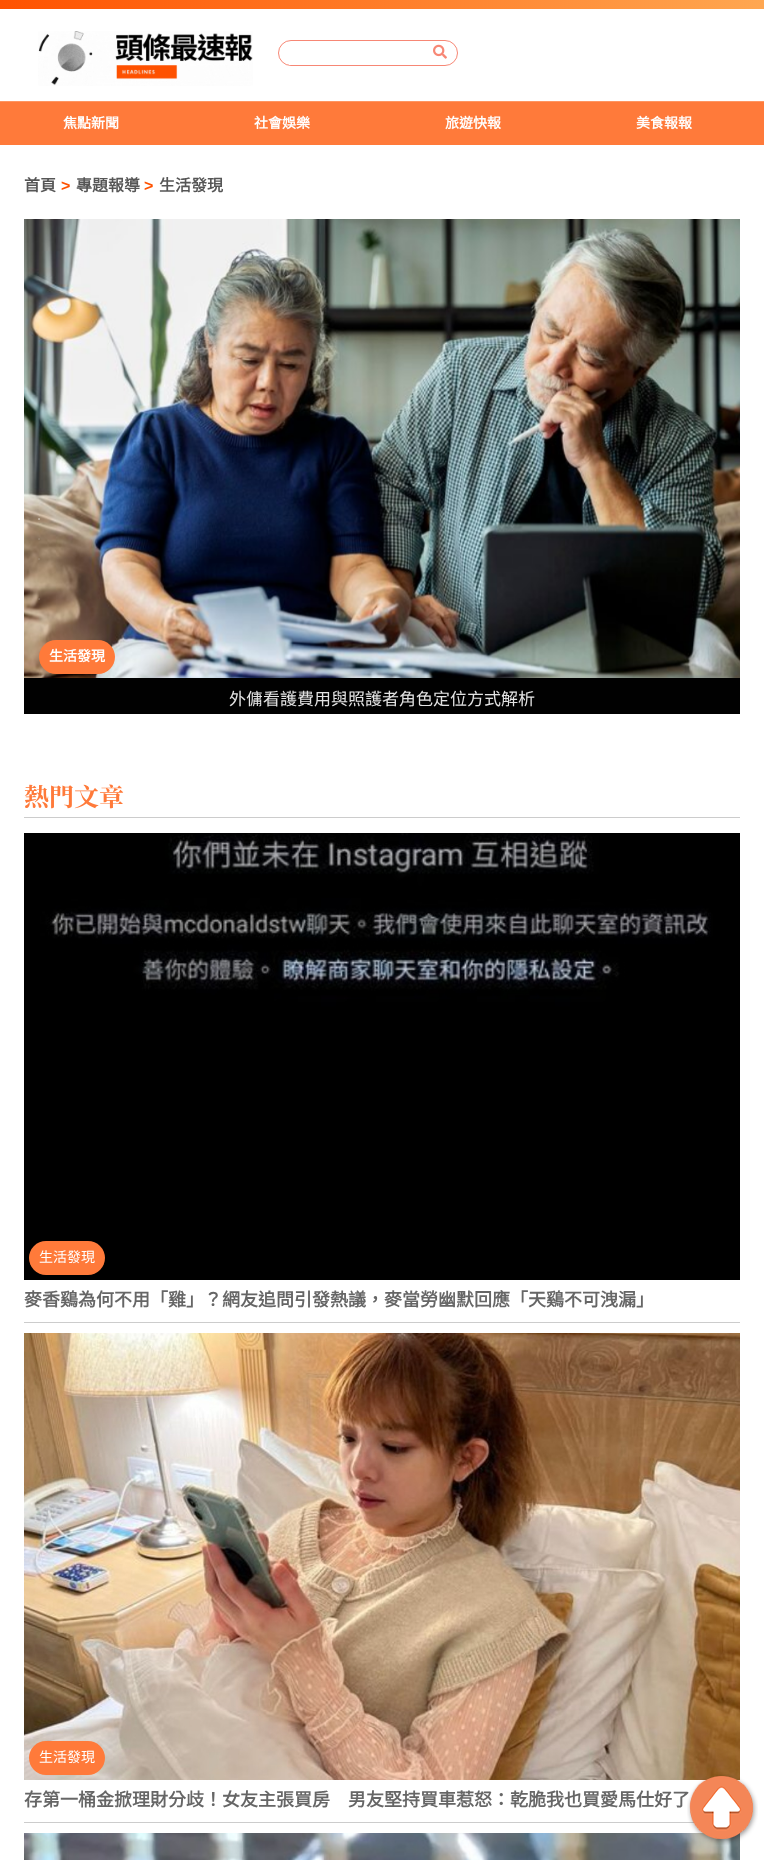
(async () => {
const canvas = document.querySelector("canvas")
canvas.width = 764
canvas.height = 1860
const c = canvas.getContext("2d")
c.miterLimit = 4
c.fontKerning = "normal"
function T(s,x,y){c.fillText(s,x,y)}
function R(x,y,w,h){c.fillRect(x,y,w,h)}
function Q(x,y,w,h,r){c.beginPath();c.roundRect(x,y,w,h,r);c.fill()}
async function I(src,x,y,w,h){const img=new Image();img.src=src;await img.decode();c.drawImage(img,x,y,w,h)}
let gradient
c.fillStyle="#fff"
R(0,0,764,1860)
gradient = c.createLinearGradient(0,4.5,764,4.5)
gradient.addColorStop(0,"#ff5200")
gradient.addColorStop(1,"#ffa751")
c.fillStyle = gradient
R(0,0,764,9)
await I("1.png",38,31,215,55)
c.beginPath()
c.roundRect(278.5,40.5,179,25,12.5)
c.strokeStyle="#f78775"
c.stroke()
await I("2.png",433,44,14,15)
c.fillStyle="#fff"
R(289,64,2,1)
c.fillStyle="#ff7a3a"
R(0,102,764,43)
c.fillStyle="#ff9561"
R(0,101,764,1)
c.font="bold 14px Noto Sans CJK TC"
c.fillStyle="#fff"
T("焦點新聞",63,128)
T("社會娛樂",254,128)
T("旅遊快報",445,128)
T("美食報報",636,128)
c.font="bold 16px Noto Sans CJK TC"
c.fillStyle="#565656"
T("首頁",24,191)
c.font="bold 16px Liberation Sans"
c.fillStyle="#ff5200"
T(">",61,191)
c.font="bold 16px Noto Sans CJK TC"
c.fillStyle="#565656"
T("專題報導",76,191)
c.font="bold 16px Liberation Sans"
c.fillStyle="#ff5200"
T(">",144,191)
c.font="bold 16px Noto Sans CJK TC"
c.fillStyle="#565656"
T("生活發現",159,191)
await I("3.png",24,219,716,459)
c.font="6px Liberation Serif"
c.fillStyle="#e5dfd9"
T("•",38,521)
c.fillStyle="#a59482"
T("•",38,541)
T("•",38,561)
c.fillStyle="#927e6f"
T("•",38,601)
c.fillStyle="#ff7a3a"
Q(39,640,76,34,17)
c.font="bold 14px Noto Sans CJK TC"
c.fillStyle="#fff"
T("生活發現",49,661)
c.fillStyle="#010101"
R(24,678,716,36)
c.font="17px Noto Sans CJK TC"
c.fillStyle="#e3e3e3"
T("外傭看護費用與照護者角色定位方式解析",229,705)
c.fillStyle="#ccc"
R(24,817,716,1)
c.font="200 25px Noto Serif TC"
c.fillStyle="#ff7a3a"
T("熱門文章",24,806)
c.fillStyle="#ccc"
R(24,1322,716,1)
await I("4.png",24,833,716,447)
c.fillStyle="#ff7a3a"
Q(29,1241,76,34,17)
c.font="14px Noto Sans CJK TC"
c.fillStyle="#fff"
T("生活發現",39,1262)
c.font="bold 18px Noto Sans CJK TC"
c.fillStyle="#666"
T("麥香鷄為何不用「雞」？網友追問引發熱議，麥當勞幽默回應「天鷄不可洩漏」",24,1306)
c.fillStyle="#ccc"
R(24,1822,670,1)
await I("5.png",24,1333,716,447)
c.fillStyle="#ff7a3a"
Q(29,1741,76,34,17)
c.font="14px Noto Sans CJK TC"
c.fillStyle="#fff"
T("生活發現",39,1762)
c.font="bold 18px Noto Sans CJK TC"
c.fillStyle="#666"
T("存第一桶金掀理財分歧！女友主張買房　男友堅持買車惹怒：乾脆我也買愛馬仕好了",24,1806)
await I("6.png",24,1833,716,27)
await I("7.png",687,1774,71,71)
})()
